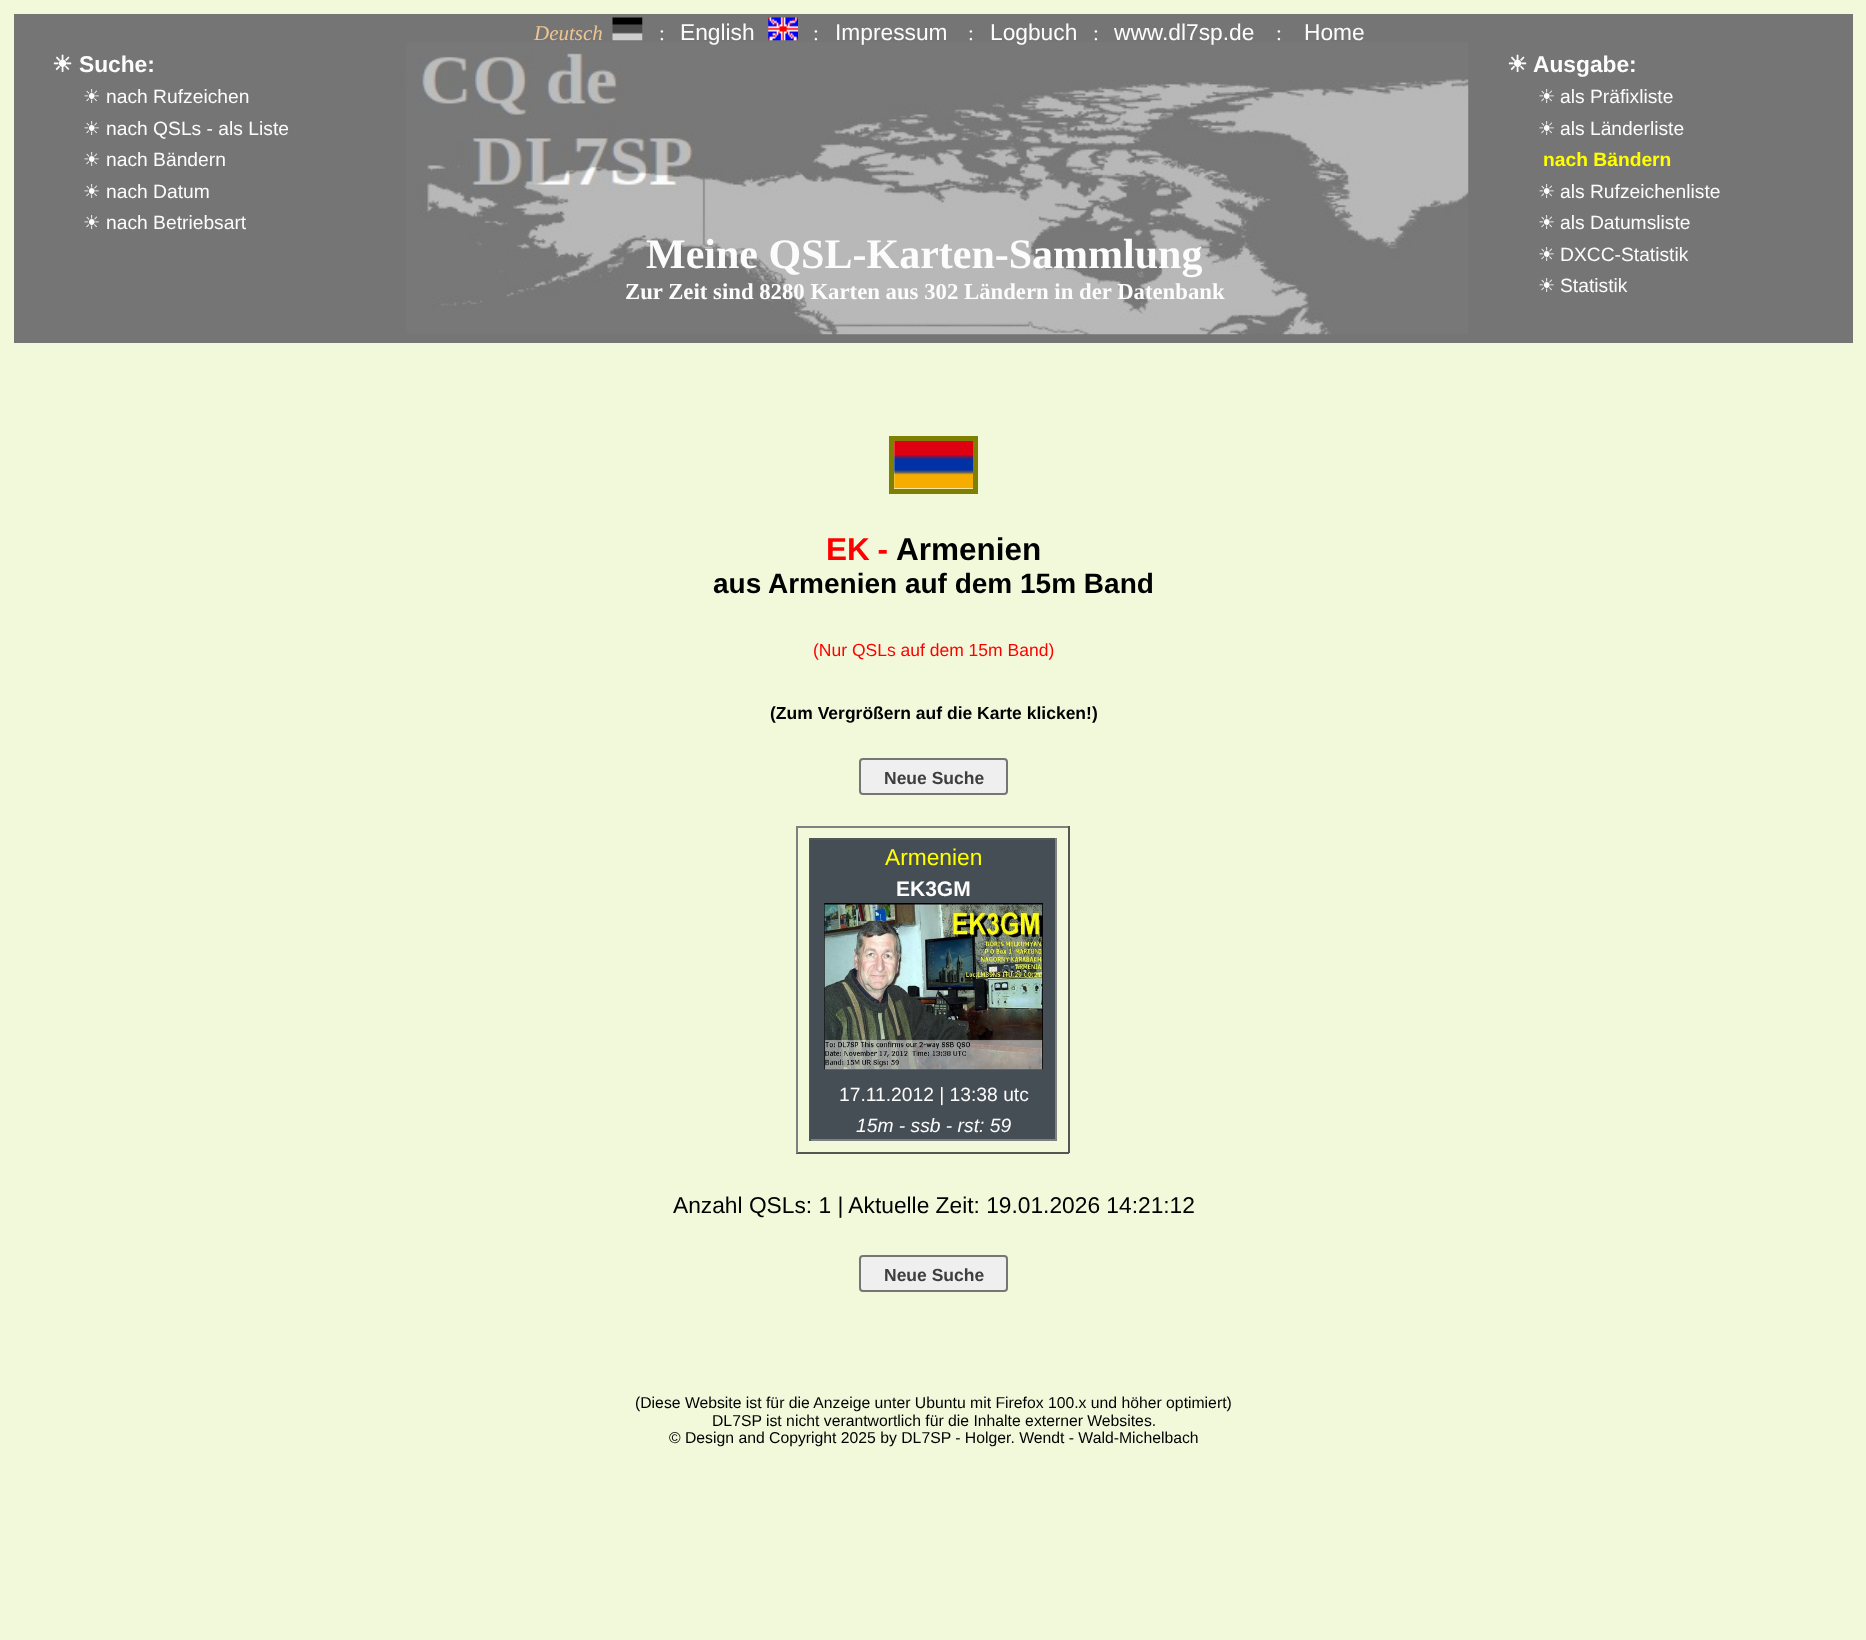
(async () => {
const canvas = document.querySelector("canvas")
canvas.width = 1866
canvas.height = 1640
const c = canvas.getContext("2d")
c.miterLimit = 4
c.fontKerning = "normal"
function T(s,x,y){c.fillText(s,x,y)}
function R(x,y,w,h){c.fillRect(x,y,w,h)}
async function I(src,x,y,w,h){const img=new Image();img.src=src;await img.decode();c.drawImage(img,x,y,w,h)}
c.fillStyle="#f2f9db"
R(0,0,1866,1640)
c.fillStyle="#757575"
R(14,14,1839,329)
c.font="bold 22.75px DejaVu Sans"
c.fillStyle="#fcfcfc"
T("☀",52,72)
c.font="bold 22.75px Liberation Sans"
T("Suche:",79,72)
c.font="19.25px DejaVu Sans"
T("☀",83,103)
c.font="19.25px Liberation Sans"
T("nach Rufzeichen",106,103)
c.font="19.25px DejaVu Sans"
T("☀",83,135)
c.font="19.25px Liberation Sans"
T("nach QSLs - als Liste",106,135)
c.font="19.25px DejaVu Sans"
T("☀",83,166)
c.font="19.25px Liberation Sans"
T("nach Bändern",106,166)
c.font="19.25px DejaVu Sans"
T("☀",83,198)
c.font="19.25px Liberation Sans"
T("nach Datum",106,198)
c.font="19.25px DejaVu Sans"
T("☀",83,229)
c.font="19.25px Liberation Sans"
T("nach Betriebsart",106,229)
await I("1.png",406,42,1063,293)
c.font="italic 21px Liberation Serif"
c.fillStyle="#eec591"
T("Deutsch",534,40)
await I("2.png",612,17,31,24)
c.font="21px Liberation Serif"
c.fillStyle="#fcfcfc"
T(":",659,40)
c.font="22.75px Liberation Sans"
T("English",680,40)
await I("3.png",768,17,30,24)
c.font="21px Liberation Serif"
T(":",813,40)
c.font="22.75px Liberation Sans"
T("Impressum",835,40)
c.font="21px Liberation Serif"
T(":",968,40)
c.font="22.75px Liberation Sans"
T("Logbuch",990,40)
c.font="21px Liberation Serif"
T(":",1093,40)
c.font="22.75px Liberation Sans"
T("www.dl7sp.de",1114,40)
c.font="21px Liberation Serif"
T(":",1276,40)
c.font="22.75px Liberation Sans"
T("Home",1304,40)
c.font="bold 42px Liberation Serif"
T("Meine QSL-Karten-Sammlung",646,268)
c.font="bold 22.75px Liberation Serif"
T("Zur Zeit sind 8280 Karten aus 302 Ländern in der Datenbank",625,299)
c.font="bold 22.75px DejaVu Sans"
T("☀",1507,72)
c.font="bold 22.75px Liberation Sans"
T("Ausgabe:",1533,72)
c.font="19.25px DejaVu Sans"
T("☀",1538,103)
c.font="19.25px Liberation Sans"
T("als Präfixliste",1560,103)
c.font="19.25px DejaVu Sans"
T("☀",1538,135)
c.font="19.25px Liberation Sans"
T("als Länderliste",1560,135)
c.font="bold 19.25px Liberation Sans"
c.fillStyle="#ff0"
T("nach Bändern",1543,166)
c.font="19.25px DejaVu Sans"
c.fillStyle="#fcfcfc"
T("☀",1538,198)
c.font="19.25px Liberation Sans"
T("als Rufzeichenliste",1560,198)
c.font="19.25px DejaVu Sans"
T("☀",1538,229)
c.font="19.25px Liberation Sans"
T("als Datumsliste",1560,229)
c.font="19.25px DejaVu Sans"
T("☀",1538,261)
c.font="19.25px Liberation Sans"
T("DXCC-Statistik",1560,261)
c.font="19.25px DejaVu Sans"
T("☀",1538,292)
c.font="19.25px Liberation Sans"
T("Statistik",1560,292)
c.strokeStyle="#808000"
c.lineWidth=5
c.strokeRect(891.5,438.5,84,53)
await I("4.png",894,441,79,48)
c.wordSpacing="-1px"
c.font="bold 31.5px Liberation Sans"
c.fillStyle="#f00"
T("EK -",826,560)
c.wordSpacing="0px"
c.fillStyle="#000"
T("Armenien",896,560)
c.font="bold 28px Liberation Sans"
T("aus Armenien auf dem 15m Band",713,593)
c.font="17.5px Liberation Sans"
c.fillStyle="#f00"
T("(Nur QSLs auf dem 15m Band)",813,656)
c.font="bold 17.5px Liberation Sans"
c.fillStyle="#000"
T("(Zum Vergrößern auf die Karte klicken!)",770,719)
c.fillStyle="#efefef"
c.beginPath()
c.roundRect(860,759,147,35,3)
c.fill()
c.strokeStyle="#767676"
c.lineWidth=2
c.stroke()
c.fillStyle="#3e3e3e"
T("Neue Suche",884,784)
c.fillStyle="#808080"
R(796,826,273,2)
c.fillStyle="#555"
R(1068,826,2,327)
R(796,1152,273,2)
c.fillStyle="#808080"
R(796,826,2,327)
c.fillStyle="#555"
R(809,838,248,2)
c.fillStyle="#808080"
R(1055,838,2,303)
R(809,1139,248,2)
c.fillStyle="#555"
R(809,838,2,303)
c.fillStyle="#454d55"
R(810,840,245,299)
c.font="22.75px Liberation Sans"
c.fillStyle="#ff0"
T("Armenien",885,865)
c.font="bold 21px Liberation Sans"
c.fillStyle="#fcfcfc"
T("EK3GM",896,896)
await I("5.png",824,903,219,167)
c.font="19.25px Liberation Sans"
T("17.11.2012 | 13:38 utc",839,1101)
c.font="italic 19.25px Liberation Sans"
T("15m - ssb - rst: 59",856,1132)
c.font="22.75px Liberation Sans"
c.fillStyle="#000"
T("Anzahl QSLs: 1 | Aktuelle Zeit: 19.01.2026 14:21:12",673,1213)
c.fillStyle="#efefef"
c.beginPath()
c.roundRect(860,1256,147,35,3)
c.fill()
c.stroke()
c.font="bold 17.5px Liberation Sans"
c.fillStyle="#3e3e3e"
T("Neue Suche",884,1281)
c.font="15.75px Liberation Sans"
c.fillStyle="#000"
T("(Diese Website ist für die Anzeige unter Ubuntu mit Firefox 100.x und höher optimiert)",635,1408)
T("DL7SP ist nicht verantwortlich für die Inhalte externer Websites.",712,1426)
T("© Design and Copyright 2025 by DL7SP - Holger. Wendt - Wald-Michelbach",669,1443)
})()
